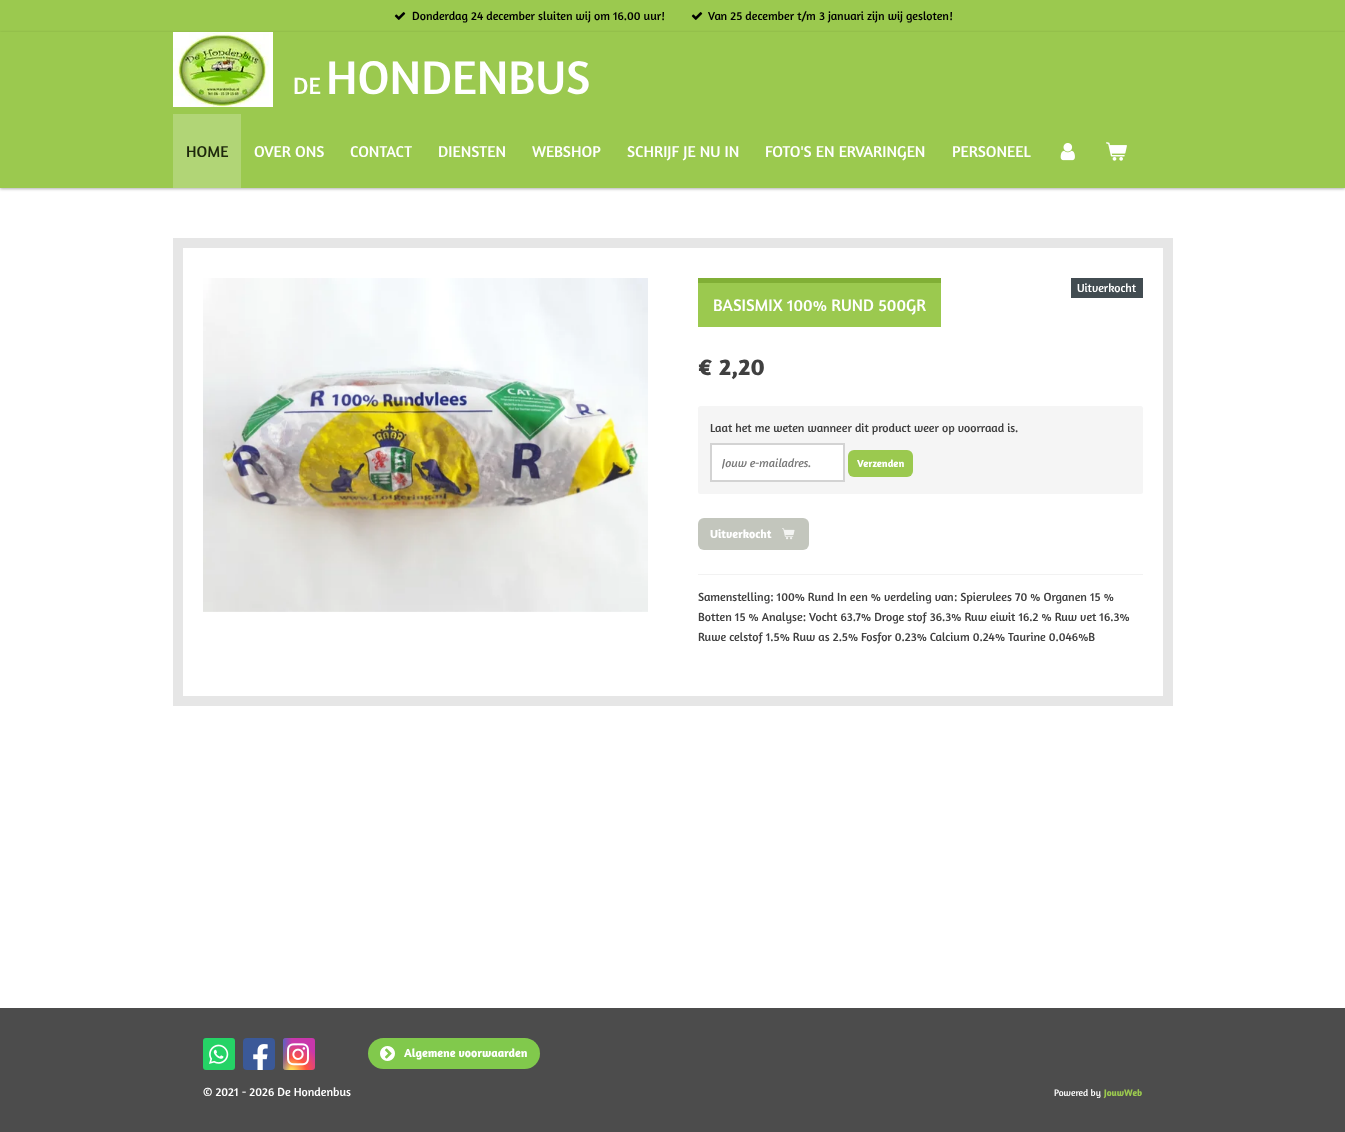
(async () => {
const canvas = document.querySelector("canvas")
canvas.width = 1345
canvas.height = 1132
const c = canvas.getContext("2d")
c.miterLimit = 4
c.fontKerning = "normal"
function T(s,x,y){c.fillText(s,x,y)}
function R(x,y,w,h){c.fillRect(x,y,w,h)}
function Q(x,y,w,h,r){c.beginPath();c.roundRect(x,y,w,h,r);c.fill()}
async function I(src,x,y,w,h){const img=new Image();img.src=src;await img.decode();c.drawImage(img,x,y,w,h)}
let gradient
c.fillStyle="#fff"
R(0,0,1345,1132)
c.fillStyle="#9bc94f"
R(0,0,1345,32)
await I("1.png",394,12,12,8)
c.font="12px Amaranth"
c.fillStyle="#000"
T("Donderdag 24 december sluiten wij om 16.00 uur!",412,20)
await I("1.png",691,12,12,8)
T("Van 25 december t/m 3 januari zijn wij gesloten!",708,20)
c.fillStyle="#0000004d"
c.filter="blur(1.5px)"
c.beginPath()
c.rect(0,33,1345,156)
c.fill()
c.filter="none"
c.fillStyle="#9bc94f"
R(0,32,1345,156)
await I("2.png",173,32,100,75)
c.font="24px Amaranth"
c.fillStyle="#fff"
T("DE",293,94)
c.font="48px Amaranth"
T("HONDENBUS",326,94)
c.fillStyle="#b1d576"
R(173,114,68,74)
c.font="16px Amaranth"
c.fillStyle="#1d270c"
T("HOME",186,157)
c.fillStyle="#fff"
T("OVER ONS",254,157)
T("CONTACT",350,157)
T("DIENSTEN",438,157)
T("WEBSHOP",532,157)
T("SCHRIJF JE NU IN",627,157)
T("FOTO'S EN ERVARINGEN",765,157)
T("PERSONEEL",952,157)
await I("3.png",1060,143,15,18)
await I("4.png",1106,142,21,19)
c.fillStyle="#e6e6e6"
R(173,238,1000,468)
c.fillStyle="#fff"
R(183,248,980,448)
await I("5.png",203,278,445,334)
c.fillStyle="#424c51"
R(1071,278,72,20)
c.font="12px Amaranth"
c.fillStyle="#fff"
T("Uitverkocht",1077,292)
c.fillStyle="#9bc94f"
R(698,283,243,44)
c.fillStyle="#81af36"
R(698,278,243,5)
c.font="17px Amaranth"
c.fillStyle="#fff"
T("BASISMIX 100% RUND 500GR",713,311)
c.font="bold 24px Amaranth"
c.fillStyle="#404040"
T("€ 2,20",698,375)
c.fillStyle="#f5f5f5"
Q(698,406,445,88,2.5)
c.font="12px Amaranth"
c.fillStyle="#404040"
T("Laat het me weten wanneer dit product weer op voorraad is.",710,432)
c.fillStyle="#fff"
c.beginPath()
c.rect(711,444,133,37)
c.fill()
c.strokeStyle="#d3d3d3"
c.lineWidth=2
c.stroke()
c.save()
c.beginPath()
c.rect(722,455,111,15)
c.clip()
c.font="italic 12px Amaranth"
c.fillStyle="#797979"
T("Jouw e-mailadres.",722,467)
c.restore()
c.fillStyle="#9bc94f"
Q(848,450,65,27,6)
c.font="bold 10.5px Amaranth"
c.fillStyle="#fff"
T("Verzenden",857,467)
c.fillStyle="#c3c6bd"
Q(698,518,111,32,6)
c.font="bold 12px Amaranth"
c.fillStyle="#fff"
T("Uitverkocht",710,538)
await I("6.png",782,528,13,12)
c.fillStyle="#f2f2f2"
R(698,574,445,1)
c.font="12px Amaranth"
c.fillStyle="#404040"
T("Samenstelling: 100% Rund In een % verdeling van: Spiervlees 70 % Organen 15 %",698,601)
T("Botten 15 % Analyse: Vocht 63.7% Droge stof 36.3% Ruw eiwit 16.2 % Ruw vet 16.3%",698,621)
T("Ruwe celstof 1.5% Ruw as 2.5% Fosfor 0.23% Calcium 0.24% Taurine 0.046%B",698,641)
c.fillStyle="#4c4c4c"
R(0,1008,1345,124)
c.fillStyle="#25d366"
Q(203,1038,32,32,3)
await I("7.png",209,1044,20,20)
c.fillStyle="#3b5998"
Q(243,1038,32,32,4)
await I("8.png",253,1044,15,26)
gradient = c.createRadialGradient(291,1145.93,0,291,1145.93,31)
gradient.addColorStop(0,"#fd5")
gradient.addColorStop(.1,"#fd5")
gradient.addColorStop(.5,"#ff543e")
gradient.addColorStop(1,"#c837ab")
c.fillStyle = gradient
c.beginPath()
c.roundRect(283,1038,32,32,3)
c.save()
c.clip()
c.scale(1,29 / 31)
c.fillRect(0,0,1345,1211)
c.restore()
gradient = c.createRadialGradient(278,251.03,0,278,251.03,14)
gradient.addColorStop(0,"#3771c8")
gradient.addColorStop(.13,"#3771c8")
gradient.addColorStop(1,"#3771c800")
c.fillStyle = gradient
c.beginPath()
c.roundRect(283,1038,32,32,3)
c.save()
c.clip()
c.scale(1,58 / 14)
c.fillRect(0,0,1345,274)
c.restore()
await I("9.png",287,1043,22,23)
c.fillStyle="#81c94c"
Q(368,1038,172,31,15.5)
await I("10.png",380,1046,15,15)
c.font="bold 12px Amaranth"
c.fillStyle="#fff"
T("Algemene voorwaarden",404,1057)
c.font="12px Amaranth"
T("© 2021 - 2026 De Hondenbus",203,1096)
c.font="9.5px Amaranth"
T("Powered by",1054,1096)
c.font="bold 9.5px Amaranth"
c.fillStyle="#9bc94f"
T("JouwWeb",1104,1096)
})()
